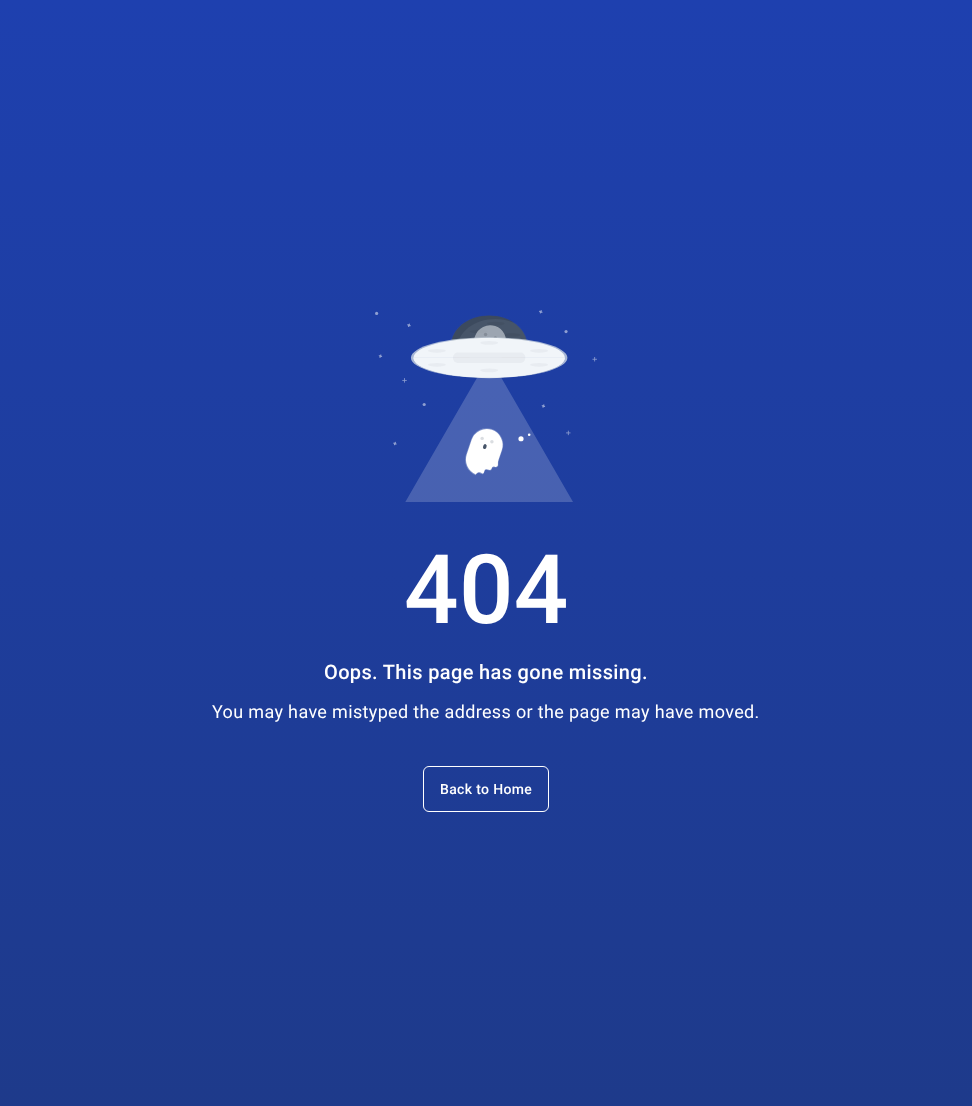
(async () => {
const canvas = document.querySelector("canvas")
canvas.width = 972
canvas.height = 1106
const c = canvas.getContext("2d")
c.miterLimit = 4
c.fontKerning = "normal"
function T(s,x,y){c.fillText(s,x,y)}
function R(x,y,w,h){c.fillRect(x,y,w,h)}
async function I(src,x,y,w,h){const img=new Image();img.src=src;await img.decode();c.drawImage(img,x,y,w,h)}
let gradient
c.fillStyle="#fff"
R(0,0,972,1106)
gradient = c.createLinearGradient(486,0,486,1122)
gradient.addColorStop(0,"#1e40af")
gradient.addColorStop(1,"#1e3a8a")
c.fillStyle = gradient
R(0,0,972,1106)
await I("1.png",375,310,222,192)
c.letterSpacing="0.35px"
c.font="500 96px Roboto"
c.fillStyle="#fff"
T("404",404,623)
c.font="500 20px Roboto"
T("Oops. This page has gone missing.",324,679)
c.font="18px Roboto"
T("You may have mistyped the address or the page may have moved.",212,718)
c.beginPath()
c.roundRect(423.5,766.5,125,45,5.5)
c.strokeStyle="#fff"
c.stroke()
c.font="500 14px Roboto"
T("Back to Home",440,794)
})()
